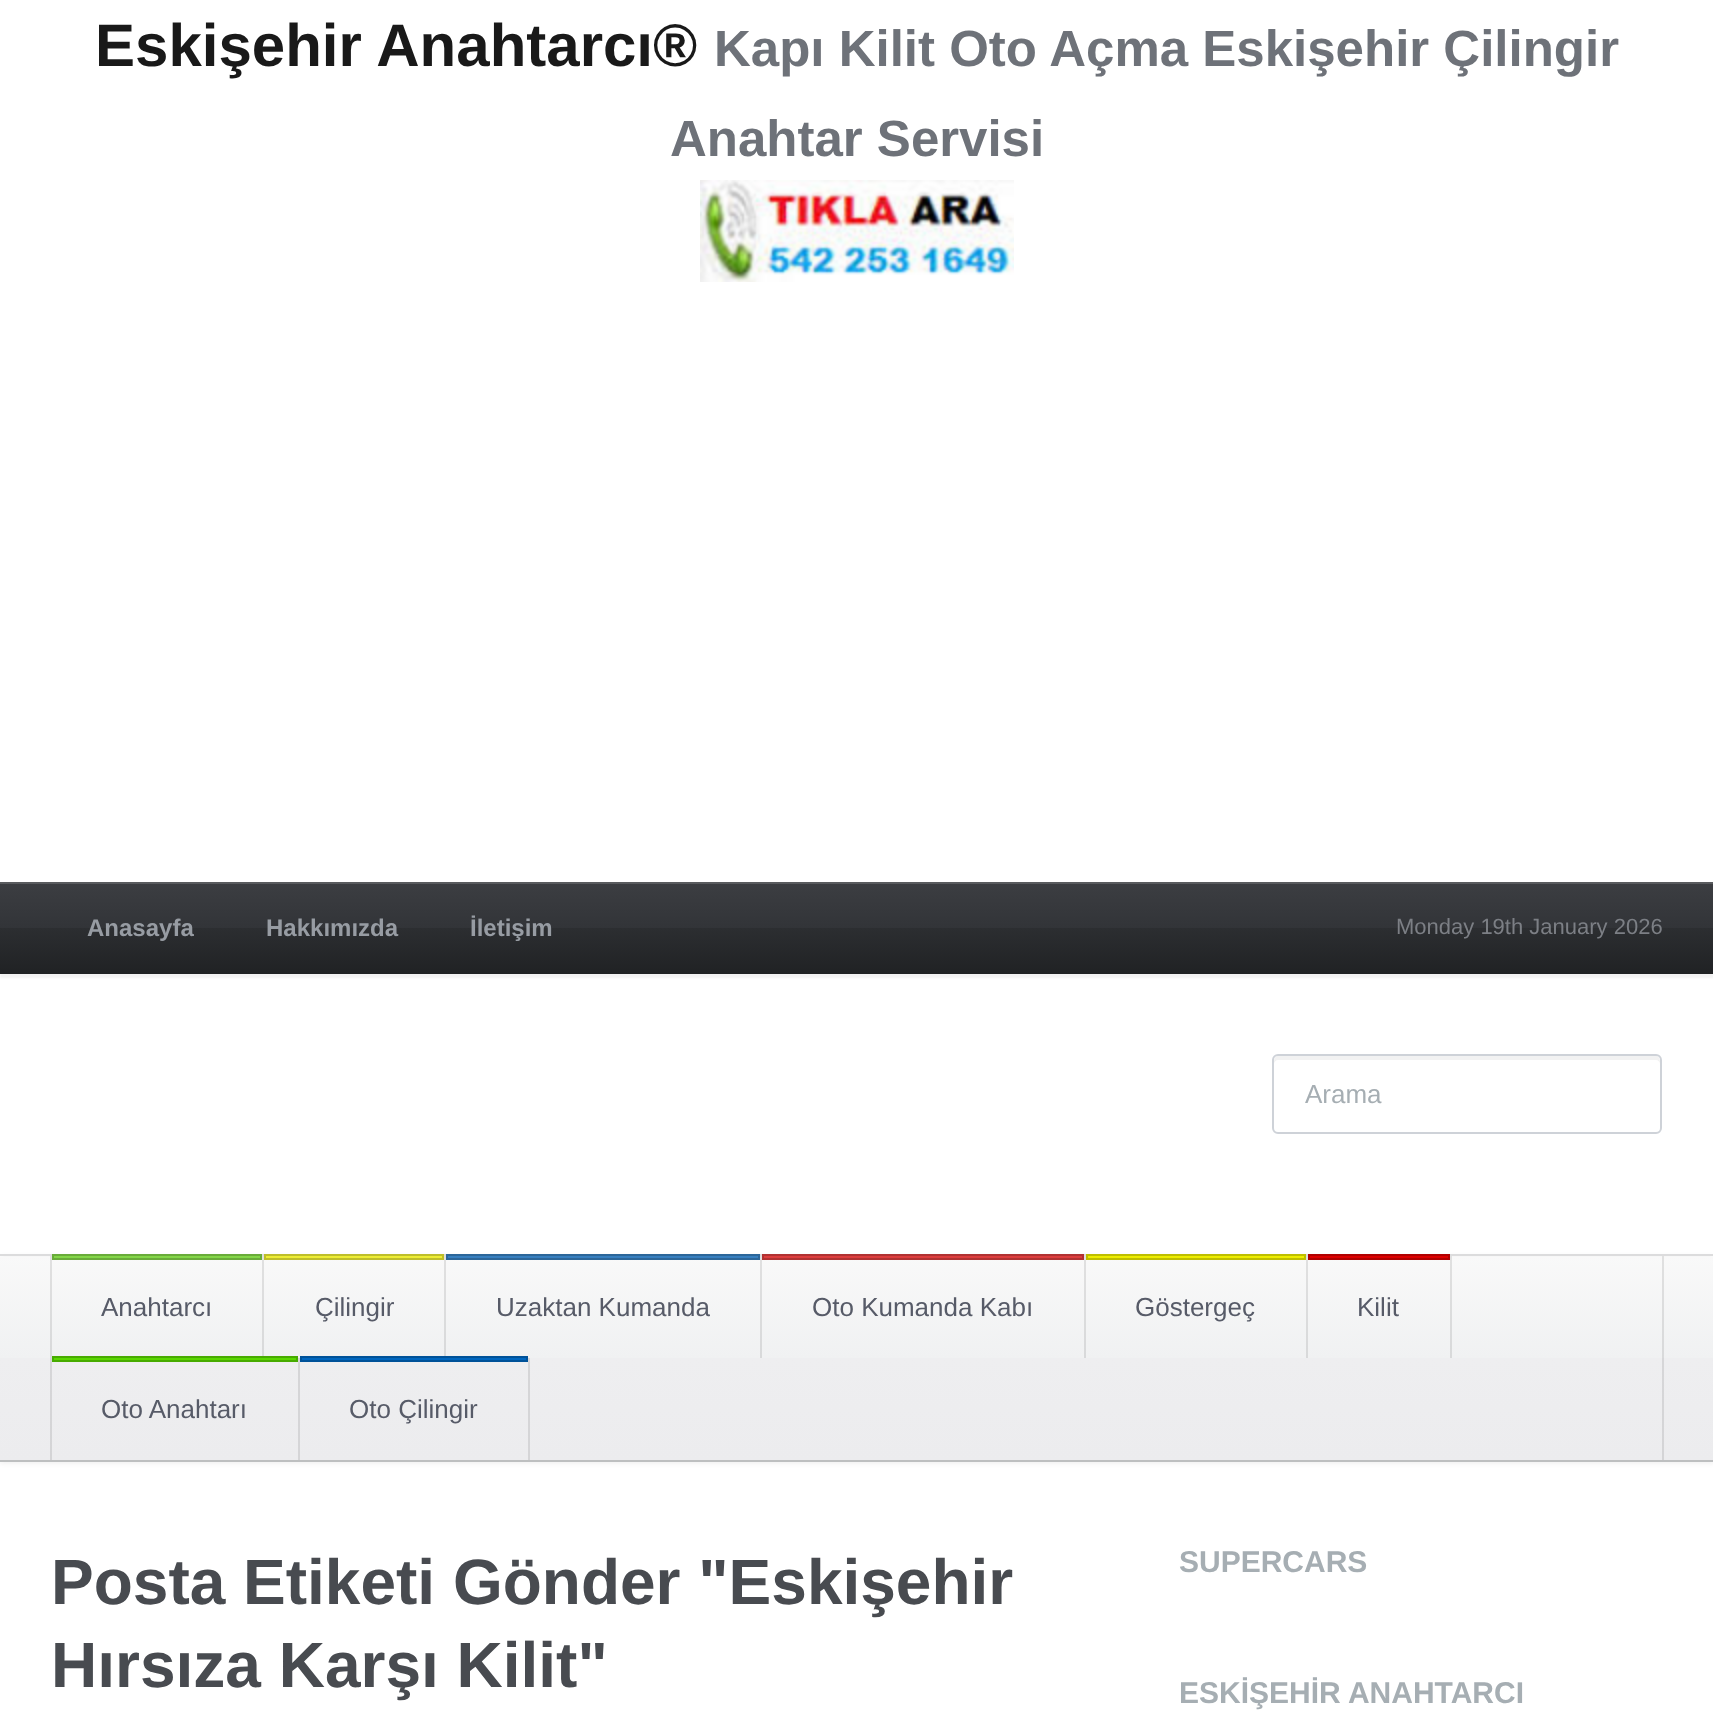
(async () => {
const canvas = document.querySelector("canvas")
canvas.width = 1713
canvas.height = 1734
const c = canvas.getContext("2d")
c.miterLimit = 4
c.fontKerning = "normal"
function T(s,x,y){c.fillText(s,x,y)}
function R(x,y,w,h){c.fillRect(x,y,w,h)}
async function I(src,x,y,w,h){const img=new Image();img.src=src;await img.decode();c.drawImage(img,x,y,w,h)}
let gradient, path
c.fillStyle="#fff"
R(0,0,1713,1734)
c.font="bold 60px Liberation Sans"
c.fillStyle="#191919"
T("Eskişehir Anahtarcı®",95,66)
c.font="bold 51px Liberation Sans"
c.fillStyle="#6e7279"
T("Kapı Kilit Oto Açma Eskişehir Çilingir",714,66)
T("Anahtar Servisi",670,156)
await I("1.png",700,180,314,102)
c.fillStyle="#0000000d"
c.filter="blur(1px)"
c.beginPath()
c.rect(0,886,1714,92)
c.fill()
c.filter="none"
gradient = c.createLinearGradient(857,882,857,974)
gradient.addColorStop(0,"#3c3e42")
gradient.addColorStop(.5,"#323438")
gradient.addColorStop(.5,"#2c2e31")
gradient.addColorStop(1,"#202224")
c.fillStyle = gradient
R(0,884,1713,90)
c.fillStyle="#595b5e"
R(0,882,1713,2)
c.font="bold 24px Liberation Sans"
c.fillStyle="#979ca3"
T("Anasayfa",87,936)
T("Hakkımızda",266,936)
T("İletişim",470,936)
c.font="22px Liberation Sans"
c.fillStyle="#7c7f85"
T("Monday 19th January 2026",1396,934)
c.fillStyle="#f2f2f2"
path = new Path2D("M1278 1060h378c2 0 4 2 4 4c0-3 0-8-4-8h-378c-4 0-4 5-4 8c0-2 2-4 4-4z")
c.fill(path)
c.beginPath()
c.roundRect(1273,1055,388,78,5)
c.strokeStyle="#ced2d8"
c.lineWidth=2
c.stroke()
c.font="26px Liberation Sans"
c.fillStyle="#a6aeb3"
T("Arama",1305,1103)
c.fillStyle="#0000000d"
c.filter="blur(2px)"
c.beginPath()
c.rect(0,1256,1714,208)
c.fill()
c.filter="none"
gradient = c.createLinearGradient(857,1256,857,1460)
gradient.addColorStop(0,"#f9f9f9")
gradient.addColorStop(.5,"#f0f1f2")
gradient.addColorStop(.5,"#eeeef0")
gradient.addColorStop(1,"#ececee")
c.fillStyle = gradient
R(0,1257,1713,203)
gradient = c.createLinearGradient(857,1256,857,1460)
gradient.addColorStop(0,"#e0e0e0")
gradient.addColorStop(.5,"#d8d9da")
gradient.addColorStop(.5,"#d6d6d8")
gradient.addColorStop(1,"#d4d4d6")
c.fillStyle = gradient
R(1450,1256,2,102)
R(1306,1256,2,102)
R(1084,1256,2,102)
R(760,1256,2,102)
R(444,1256,2,102)
R(262,1256,2,102)
R(50,1256,2,204)
R(1662,1256,2,204)
c.fillStyle="#dcdcdd"
R(0,1254,1713,2)
c.fillStyle="#bdbfc0"
R(0,1460,1713,2)
c.fillStyle="#83d648"
c.beginPath()
c.rect(53,1255,208,4)
c.fill()
c.strokeStyle="#69ab3a"
c.stroke()
c.fillStyle="#575b68"
T("Anahtarcı",101,1316)
c.fillStyle="#eded34"
c.beginPath()
c.rect(265,1255,178,4)
c.fill()
c.strokeStyle="#bebe2a"
c.stroke()
c.fillStyle="#575b68"
T("Çilingir",315,1316)
c.fillStyle="#377fbf"
c.beginPath()
c.rect(447,1255,312,4)
c.fill()
c.strokeStyle="#2c6699"
c.stroke()
c.fillStyle="#575b68"
T("Uzaktan Kumanda",496,1316)
c.fillStyle="#dd3e3e"
c.beginPath()
c.rect(763,1255,320,4)
c.fill()
c.strokeStyle="#b13232"
c.stroke()
c.fillStyle="#575b68"
T("Oto Kumanda Kabı",812,1316)
c.fillStyle="#eded00"
c.beginPath()
c.rect(1087,1255,218,4)
c.fill()
c.strokeStyle="#bebe00"
c.stroke()
c.fillStyle="#575b68"
T("Göstergeç",1135,1316)
c.fillStyle="#d00"
c.beginPath()
c.rect(1309,1255,140,4)
c.fill()
c.strokeStyle="#b10000"
c.stroke()
c.fillStyle="#575b68"
T("Kilit",1357,1316)
c.fillStyle="#d5d5d7"
R(298,1358,2,102)
c.fillStyle="#59d600"
c.beginPath()
c.rect(53,1357,244,4)
c.fill()
c.strokeStyle="#47ab00"
c.stroke()
c.fillStyle="#575b68"
T("Oto Anahtarı",101,1418)
c.fillStyle="#d5d5d7"
R(528,1358,2,102)
c.fillStyle="#0066bf"
c.beginPath()
c.rect(301,1357,226,4)
c.fill()
c.strokeStyle="#005299"
c.stroke()
c.fillStyle="#575b68"
T("Oto Çilingir",349,1418)
c.font="bold 64px Liberation Sans"
c.fillStyle="#484b50"
T("Posta Etiketi Gönder \"Eskişehir",51,1604)
T("Hırsıza Karşı Kilit\"",51,1687)
c.font="bold 30px Liberation Sans"
c.fillStyle="#a6aeb3"
T("SUPERCARS",1179,1572)
T("ESKİŞEHİR ANAHTARCI",1179,1703)
})()
